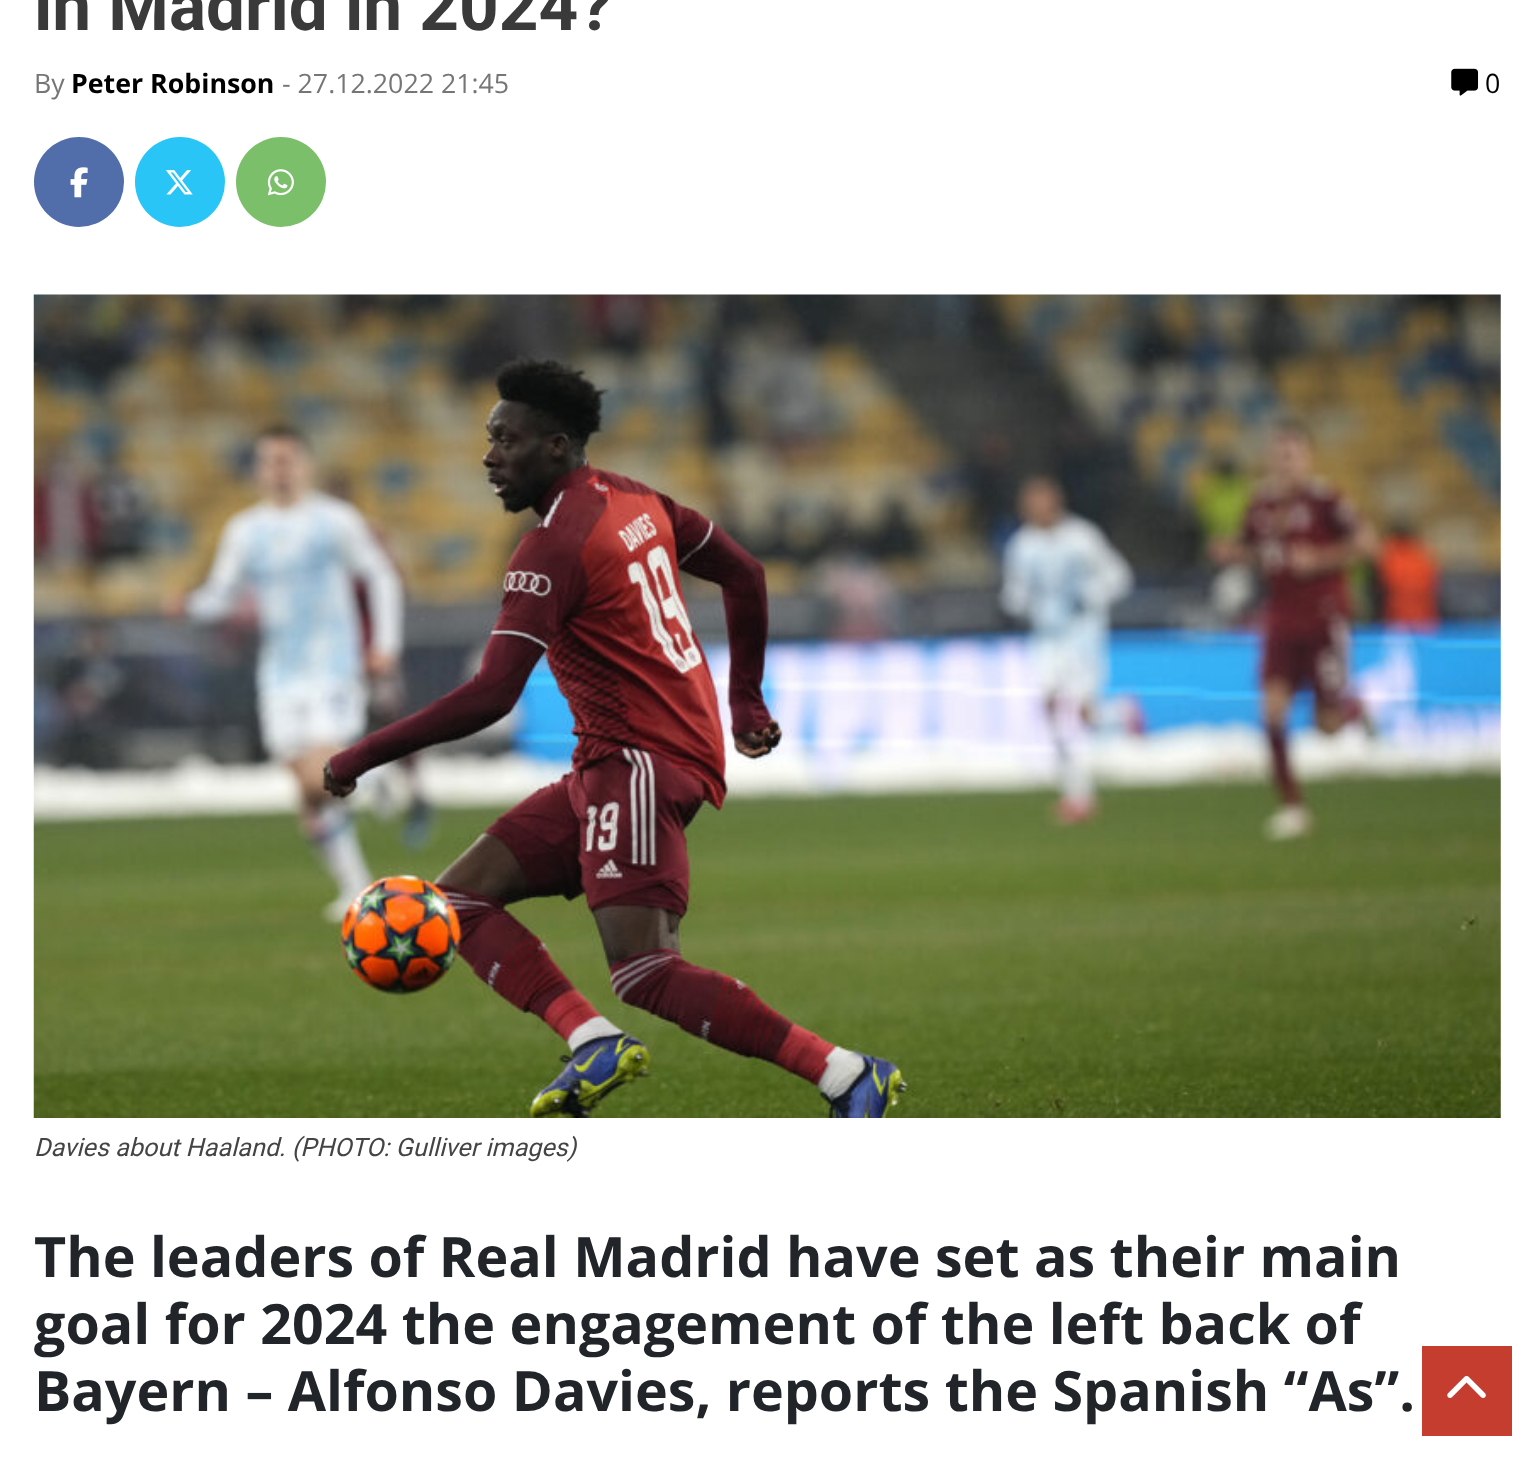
(async () => {
const canvas = document.querySelector("canvas")
canvas.width = 1534
canvas.height = 1458
const c = canvas.getContext("2d")
c.miterLimit = 4
c.fontKerning = "normal"
function T(s,x,y){c.fillText(s,x,y)}
function R(x,y,w,h){c.fillRect(x,y,w,h)}
async function I(src,x,y,w,h){const img=new Image();img.src=src;await img.decode();c.drawImage(img,x,y,w,h)}
c.fillStyle="#fff"
R(0,0,1534,1458)
c.font="bold 69.25px Roboto"
c.fillStyle="#3a3a3a"
T("in Madrid in 2024?",34,30)
c.font="26.75px Open Sans"
c.fillStyle="#767676"
T("By",34,93)
c.font="bold 26.75px Open Sans"
c.fillStyle="#000"
T("Peter Robinson",71,93)
c.font="26.75px Open Sans"
c.fillStyle="#767676"
T("- 27.12.2022 21:45",282,93)
await I("1.png",1451,68,28,28)
c.fillStyle="#000"
T("0",1485,93)
c.fillStyle="#516eab"
c.beginPath()
c.arc(79,182,45,0,7)
c.fill()
await I("2.png",70,167,18,31)
c.fillStyle="#29c5f6"
c.beginPath()
c.arc(180,182,45,0,7)
c.fill()
await I("3.png",166,170,27,25)
c.fillStyle="#7bbf6a"
c.beginPath()
c.arc(281,182,45,0,7)
c.fill()
await I("4.png",267,169,27,27)
await I("5.png",33,294,1468,824)
c.font="italic 25.2px Roboto"
c.fillStyle="#444"
T("Davies about Haaland. (PHOTO: Gulliver images)",34,1156)
c.font="bold 55.55px Open Sans"
c.fillStyle="#212529"
T("The leaders of Real Madrid have set as their main",34,1277)
T("goal for 2024 the engagement of the left back of",34,1344)
T("Bayern – Alfonso Davies, reports the Spanish “As”.",34,1411)
c.fillStyle="#c43d2f"
R(1422,1346,90,90)
await I("6.png",1447,1375,39,23)
})()
